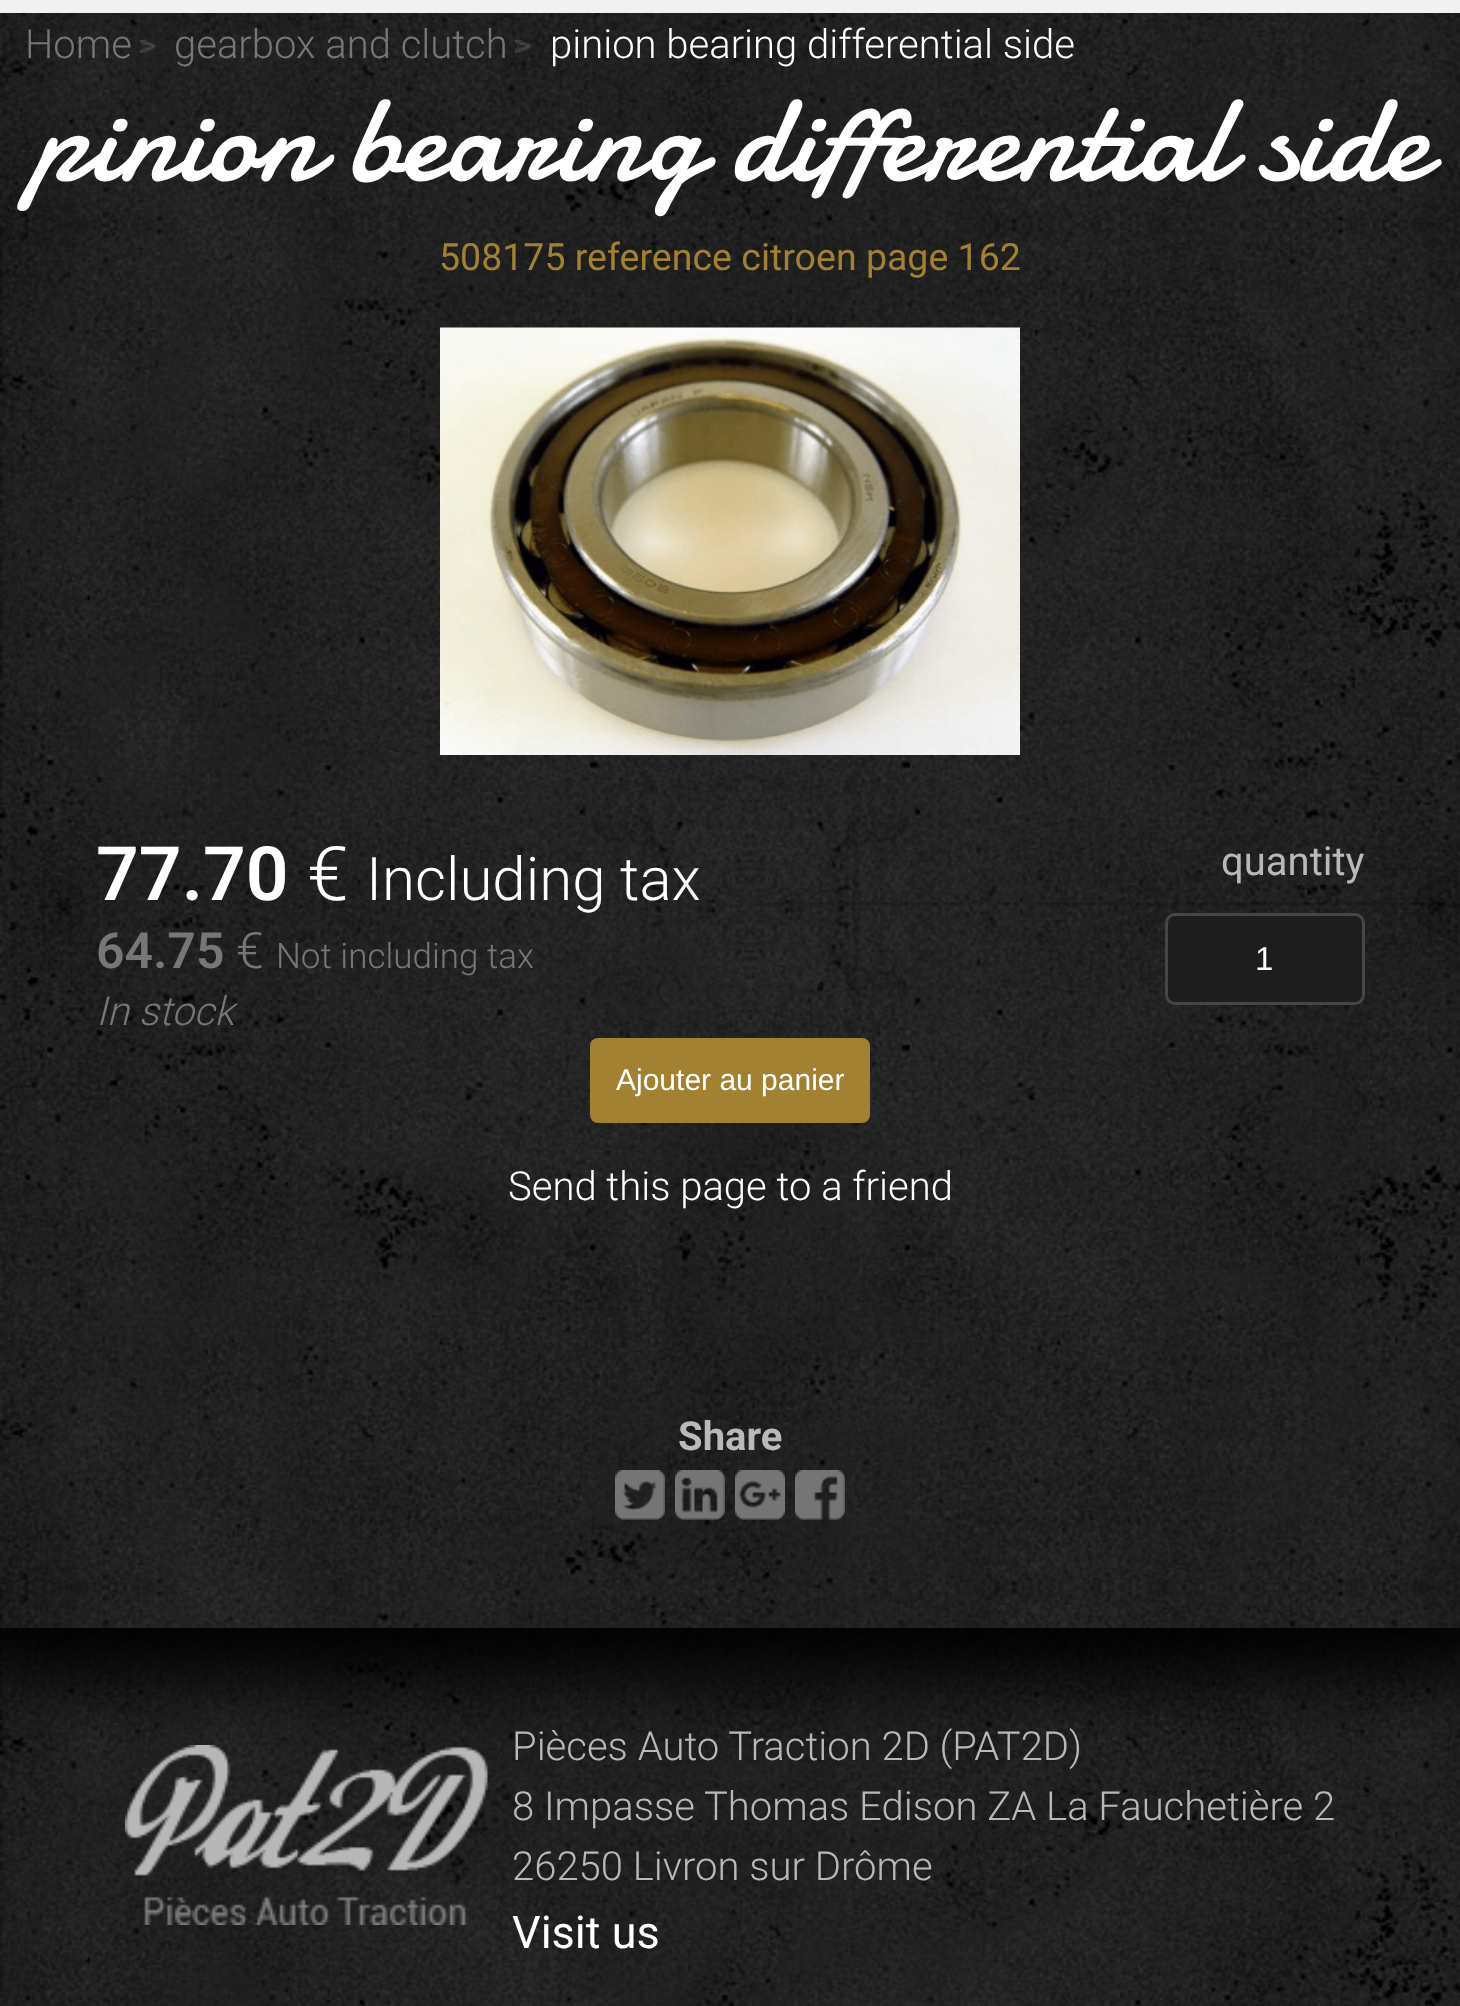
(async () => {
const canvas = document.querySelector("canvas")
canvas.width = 1460
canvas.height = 2006
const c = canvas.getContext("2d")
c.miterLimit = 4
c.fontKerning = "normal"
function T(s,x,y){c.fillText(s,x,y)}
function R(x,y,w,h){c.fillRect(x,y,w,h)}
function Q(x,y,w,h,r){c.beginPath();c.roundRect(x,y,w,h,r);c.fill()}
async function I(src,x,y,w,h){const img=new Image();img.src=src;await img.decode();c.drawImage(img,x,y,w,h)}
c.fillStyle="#fff"
R(0,0,1460,2006)
await I("1.png",0,13,1460,1993)
c.fillStyle="#f1f1f1"
R(0,0,1460,13)
await I("2.png",140,40,17,13)
c.font="300 40px Roboto"
c.fillStyle="#777"
T("Home",25,58)
await I("3.png",515,40,17,13)
T("gearbox and clutch",174,58)
c.fillStyle="#fff"
T("pinion bearing differential side",550,58)
c.font="125px Damion"
T("pinion bearing differential side",32,180)
c.font="37.5px Roboto"
c.fillStyle="#a28133"
T("508175 reference citroen page 162",439,270)
await I("4.png",440,327,580,428)
c.font="600 75px Roboto"
c.fillStyle="#fff"
T("77.70",96,900)
c.font="300 75px Roboto"
T("€",307,900)
c.font="300 60px Roboto"
T("Including tax",366,900)
c.font="600 50px Roboto"
c.fillStyle="#777"
T("64.75",96,968)
c.font="300 50px Roboto"
T("€",236,968)
c.font="300 35px Roboto"
T("Not including tax",276,968)
c.font="40px Roboto"
c.fillStyle="#b9b9b9"
T("quantity",1221,875)
c.fillStyle="#1d1d1d"
c.beginPath()
c.roundRect(1166.5,914.5,197,89,8.5)
c.fill()
c.strokeStyle="#464646"
c.lineWidth=3
c.stroke()
c.font="33px Liberation Sans"
c.fillStyle="#fff"
T("1",1255,970)
c.fillStyle="#a28133"
Q(590,1038,280,85,8)
c.font="30px Liberation Sans"
c.fillStyle="#fff"
T("Ajouter au panier",616,1090)
c.font="italic 300 40px Roboto"
c.fillStyle="#777"
T("In stock",96,1025)
c.font="300 40px Roboto"
c.fillStyle="#fff"
T("Send this page to a friend",508,1200)
c.font="bold 40px Roboto"
c.fillStyle="#b9b9b9"
T("Share",678,1450)
await I("5.png",615,1470,50,50)
await I("6.png",675,1470,50,50)
await I("7.png",735,1470,50,50)
await I("8.png",795,1470,50,50)
c.save()
c.beginPath()
c.rect(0,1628,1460,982)
c.clip()
c.fillStyle="#000"
c.filter="blur(37.5px)"
c.beginPath()
c.roundRect(-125,1303,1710,375,187.5)
c.fill()
c.filter="none"
c.restore()
await I("9.png",125,1745,363,180)
c.font="300 40px Roboto"
T("Pièces Auto Traction 2D (PAT2D)",512,1760)
T("8 Impasse Thomas Edison ZA La Fauchetière 2",512,1820)
T("26250 Livron sur Drôme",512,1880)
c.font="45px Roboto"
c.fillStyle="#fff"
T("Visit us",512,1948)
})()
